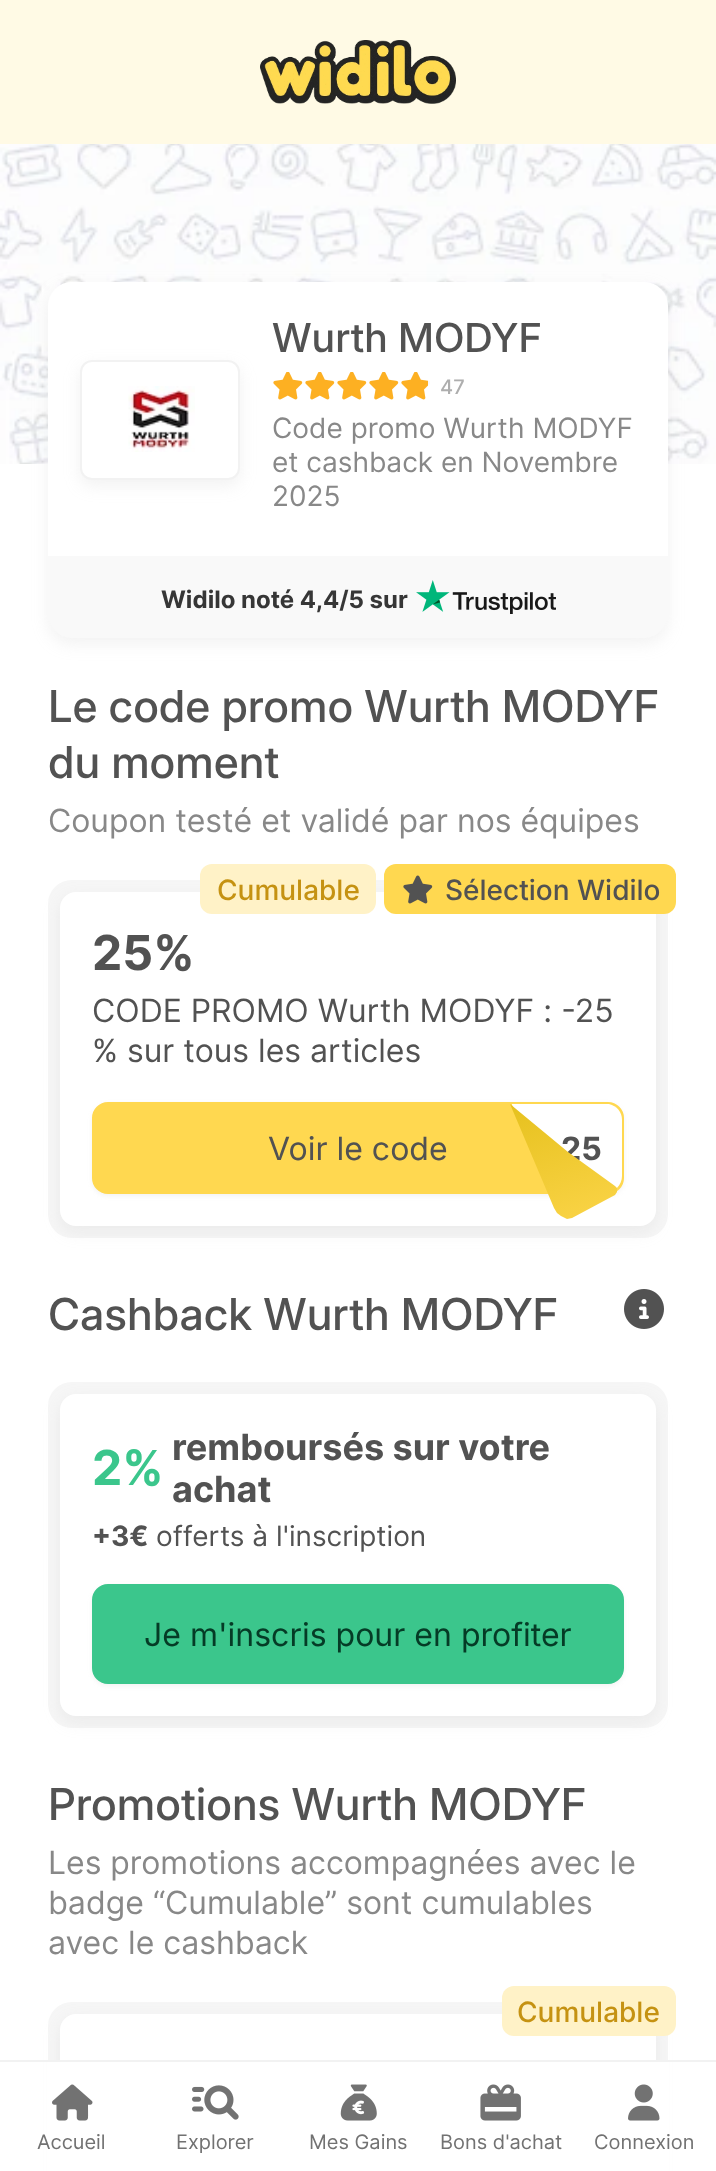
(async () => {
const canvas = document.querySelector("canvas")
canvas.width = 716
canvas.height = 2171
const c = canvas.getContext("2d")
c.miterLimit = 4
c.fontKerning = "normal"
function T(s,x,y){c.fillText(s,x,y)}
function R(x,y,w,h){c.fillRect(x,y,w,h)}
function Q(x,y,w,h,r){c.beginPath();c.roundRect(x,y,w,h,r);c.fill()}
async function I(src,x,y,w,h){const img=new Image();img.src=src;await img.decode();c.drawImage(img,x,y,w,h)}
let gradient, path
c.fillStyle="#fff"
R(0,0,716,2171)
c.fillStyle="#fffae5"
R(0,0,716,144)
await I("1.png",260,40,196,64)
await I("2.png",0,144,716,320)
c.fillStyle="#bdbdbd33"
c.filter="blur(8px)"
c.beginPath()
c.roundRect(48,288,620,356,24)
c.fill()
c.filter="none"
c.fillStyle="#fff"
c.beginPath()
c.roundRect(48,282,620,274,[24,24,0,0])
c.fill()
c.fillStyle="#bdbdbd33"
c.filter="blur(8px)"
c.beginPath()
c.roundRect(80,366,160,120,12)
c.fill()
c.filter="none"
c.fillStyle="#fff"
c.beginPath()
c.roundRect(81,361,158,118,11)
c.fill()
c.strokeStyle="#f2f2f2"
c.lineWidth=2
c.stroke()
await I("3.png",128,386,67,66)
c.font="500 40px 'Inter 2'"
c.fillStyle="#525252"
T("Wurth MODYF",272,352)
await I("5.png",274,372,28,27)
await I("4.png",273,372,30,28)
await I("5.png",306,372,28,27)
await I("4.png",305,372,30,28)
await I("5.png",338,372,28,27)
await I("4.png",337,372,30,28)
await I("5.png",370,372,28,27)
await I("4.png",369,372,30,28)
await I("5.png",402,372,28,27)
await I("6.png",401,372,27,28)
c.font="500 20px 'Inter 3'"
c.fillStyle="#aeaeae"
T("47",440,394)
c.font="28px Inter"
c.fillStyle="#888"
T("Code promo Wurth MODYF",272,438)
T("et cashback en Novembre",272,472)
T("2025",272,506)
c.fillStyle="#f9f9f9"
c.beginPath()
c.roundRect(48,556,620,82,[0,0,24,24])
c.fill()
c.font="bold 24px Inter"
c.fillStyle="#363636"
T("Widilo noté 4,4/5 sur",161,608)
await I("7.png",416,580,140,34)
c.font="500 44px Inter"
c.fillStyle="#525252"
T("Le code promo Wurth MODYF",48,722)
T("du moment",48,778)
c.font="32px Inter"
c.fillStyle="#888"
T("Coupon testé et validé par nos équipes",48,832)
c.fillStyle="#f6f6f6"
Q(48,880,620,358,24)
c.fillStyle="#bdbdbd33"
c.filter="blur(8px)"
c.beginPath()
c.roundRect(60,898,596,334,16)
c.fill()
c.filter="none"
c.fillStyle="#fff"
Q(60,892,596,334,16)
c.fillStyle="#fff2c7"
Q(200,864,176,50,12)
c.font="500 28px 'Inter 3'"
c.fillStyle="#c59212"
T("Cumulable",217,900)
c.fillStyle="#ffd850"
Q(384,864,292,50,12)
await I("8.png",403,875,30,29)
c.fillStyle="#525252"
T("Sélection Widilo",445,900)
c.font="bold 48px Inter"
T("25%",92,970)
c.font="32px Inter"
T("CODE PROMO Wurth MODYF : -25",92,1022)
T("% sur tous les articles",92,1062)
c.fillStyle="#bdbdbd2e"
c.filter="blur(2px)"
c.beginPath()
c.roundRect(92,1104,532,92,16)
c.fill()
c.filter="none"
c.fillStyle="#ffd850"
c.beginPath()
c.roundRect(93,1103,530,90,15)
c.fill()
c.strokeStyle="#ffd850"
c.stroke()
c.font="32px 'Inter 2'"
c.fillStyle="#525252"
T("Voir le code",268,1160)
c.fillStyle="#fff"
path = new Path2D("M609 1104h-97v1l61 87h33c9 0 16-7 16-16v-56c0-8-5-14-13-16z")
c.fill(path)
c.font="bold 32px Inter"
c.fillStyle="#525252"
T("25",561,1160)
gradient = c.createLinearGradient(540,1093,600,1256)
gradient.addColorStop(0,"#e6c11e")
gradient.addColorStop(1,"#ffd850")
c.fillStyle = gradient
path = new Path2D("M554 1208l3 5l4 3l4 2l2 1l5-1l43-23l2-3v-2v-2l-2-2l-47-34l-58-48z")
c.fill(path)
c.font="500 44px Inter"
c.fillStyle="#525252"
T("Cashback Wurth MODYF",48,1330)
await I("9.png",624,1289,40,40)
c.fillStyle="#f6f6f6"
Q(48,1382,620,346,24)
c.fillStyle="#bdbdbd33"
c.filter="blur(8px)"
c.beginPath()
c.roundRect(60,1400,596,322,16)
c.fill()
c.filter="none"
c.fillStyle="#fff"
Q(60,1394,596,322,16)
c.font="bold 48px Inter"
c.fillStyle="#3bc68c"
T("2%",92,1485)
c.font="bold 36px Inter"
c.fillStyle="#525252"
T("remboursés sur votre",172,1460)
T("achat",172,1502)
c.font="bold 28px Inter"
T("+3€",92,1546)
c.font="28px Inter"
T("offerts à l'inscription",156,1546)
c.fillStyle="#bdbdbd2e"
c.filter="blur(2px)"
c.beginPath()
c.roundRect(92,1586,532,100,16)
c.fill()
c.filter="none"
c.fillStyle="#3bc68c"
c.beginPath()
c.roundRect(93,1585,530,98,15)
c.fill()
c.strokeStyle="#3bc68c"
c.stroke()
c.font="32px 'Inter 2'"
c.fillStyle="#053b26"
T("Je m'inscris pour en profiter",144,1646)
c.font="500 44px Inter"
c.fillStyle="#525252"
T("Promotions Wurth MODYF",48,1820)
c.font="32px Inter"
c.fillStyle="#888"
T("Les promotions accompagnées avec le",48,1874)
T("badge “Cumulable” sont cumulables",48,1914)
T("avec le cashback",48,1954)
c.fillStyle="#f6f6f6"
Q(48,2002,620,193,24)
c.fillStyle="#bdbdbd33"
c.filter="blur(8px)"
c.beginPath()
c.roundRect(60,2020,596,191,16)
c.fill()
c.filter="none"
c.fillStyle="#fff"
Q(60,2014,596,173,16)
c.fillStyle="#fff2c7"
Q(502,1986,174,50,12)
c.font="500 28px 'Inter 3'"
c.fillStyle="#c59212"
T("Cumulable",517,2022)
c.fillStyle="#fff"
R(48,2062,620,109)
c.fillStyle="#f2f2f2"
R(0,2060,716,2)
await I("10.png",52,2084,41,37)
c.font="20px Inter"
c.fillStyle="#727272"
T("Accueil",37,2149)
await I("11.png",192,2085,47,35)
T("Explorer",176,2149)
await I("12.png",340,2084,37,37)
T("Mes Gains",309,2149)
await I("13.png",480,2084,41,37)
T("Bons d'achat",440,2149)
await I("14.png",628,2084,32,37)
T("Connexion",594,2149)
})()
